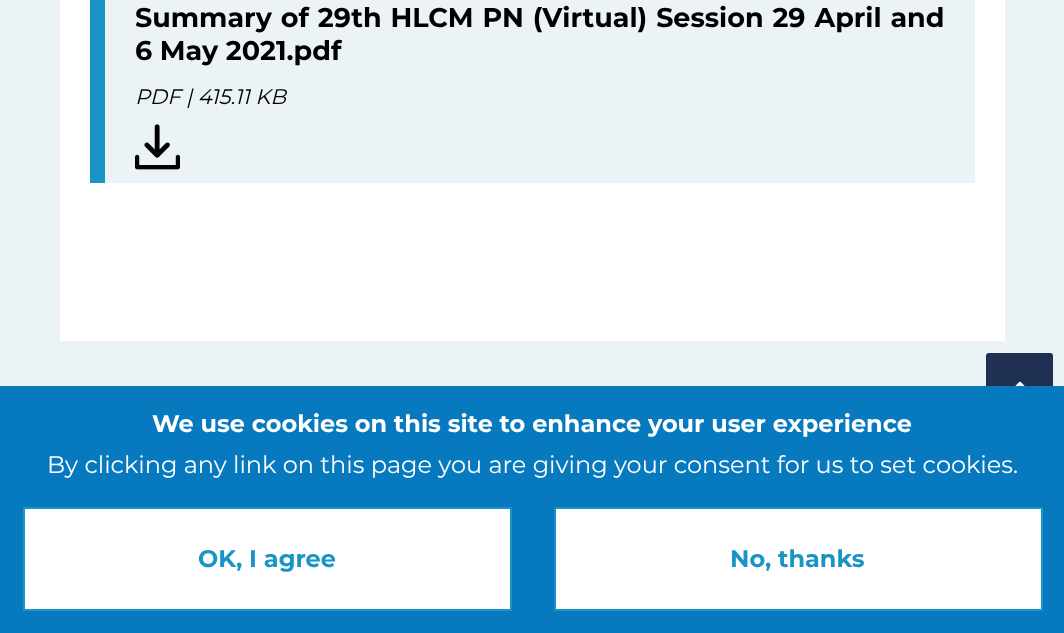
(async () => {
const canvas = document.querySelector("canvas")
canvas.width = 1064
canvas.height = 633
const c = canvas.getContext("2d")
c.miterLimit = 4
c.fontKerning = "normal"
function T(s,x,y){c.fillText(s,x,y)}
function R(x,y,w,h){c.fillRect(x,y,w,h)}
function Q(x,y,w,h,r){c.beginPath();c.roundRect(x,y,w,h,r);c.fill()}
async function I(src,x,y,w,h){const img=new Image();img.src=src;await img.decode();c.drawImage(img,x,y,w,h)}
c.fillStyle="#ecf3f7"
R(0,0,1064,633)
c.fillStyle="#fff"
R(60,0,945,341)
c.fillStyle="#ecf3f7"
R(105,0,870,183)
c.fillStyle="#1894c6"
R(90,0,15,183)
c.wordSpacing="1.25px"
c.font="bold 27px Montserrat"
c.fillStyle="#000"
T("Summary of 29th HLCM PN (Virtual) Session 29 April and",135,27)
c.wordSpacing="0px"
T("6 May 2021.pdf",135,60)
c.font="italic 21px Montserrat"
T("PDF | 415.11 KB",135,104)
await I("1.png",135,124,45,46)
c.fillStyle="#1f3052"
Q(986,353,67,67,3)
await I("2.png",1015,381,10,5)
c.fillStyle="#0779bf"
R(0,386,1064,247)
c.font="bold 24px Montserrat"
c.fillStyle="#fff"
T("We use cookies on this site to enhance your user experience",152,432)
c.font="24px Montserrat"
T("By clicking any link on this page you are giving your consent for us to set cookies.",47,473)
c.beginPath()
c.rect(24,508,487,102)
c.fill()
c.strokeStyle="#1894c6"
c.lineWidth=2
c.stroke()
c.font="bold 24px Montserrat"
c.fillStyle="#1894c6"
T("OK, I agree",198,567)
c.fillStyle="#fff"
c.beginPath()
c.rect(555,508,487,102)
c.fill()
c.stroke()
c.fillStyle="#1894c6"
T("No, thanks",730,567)
})()
